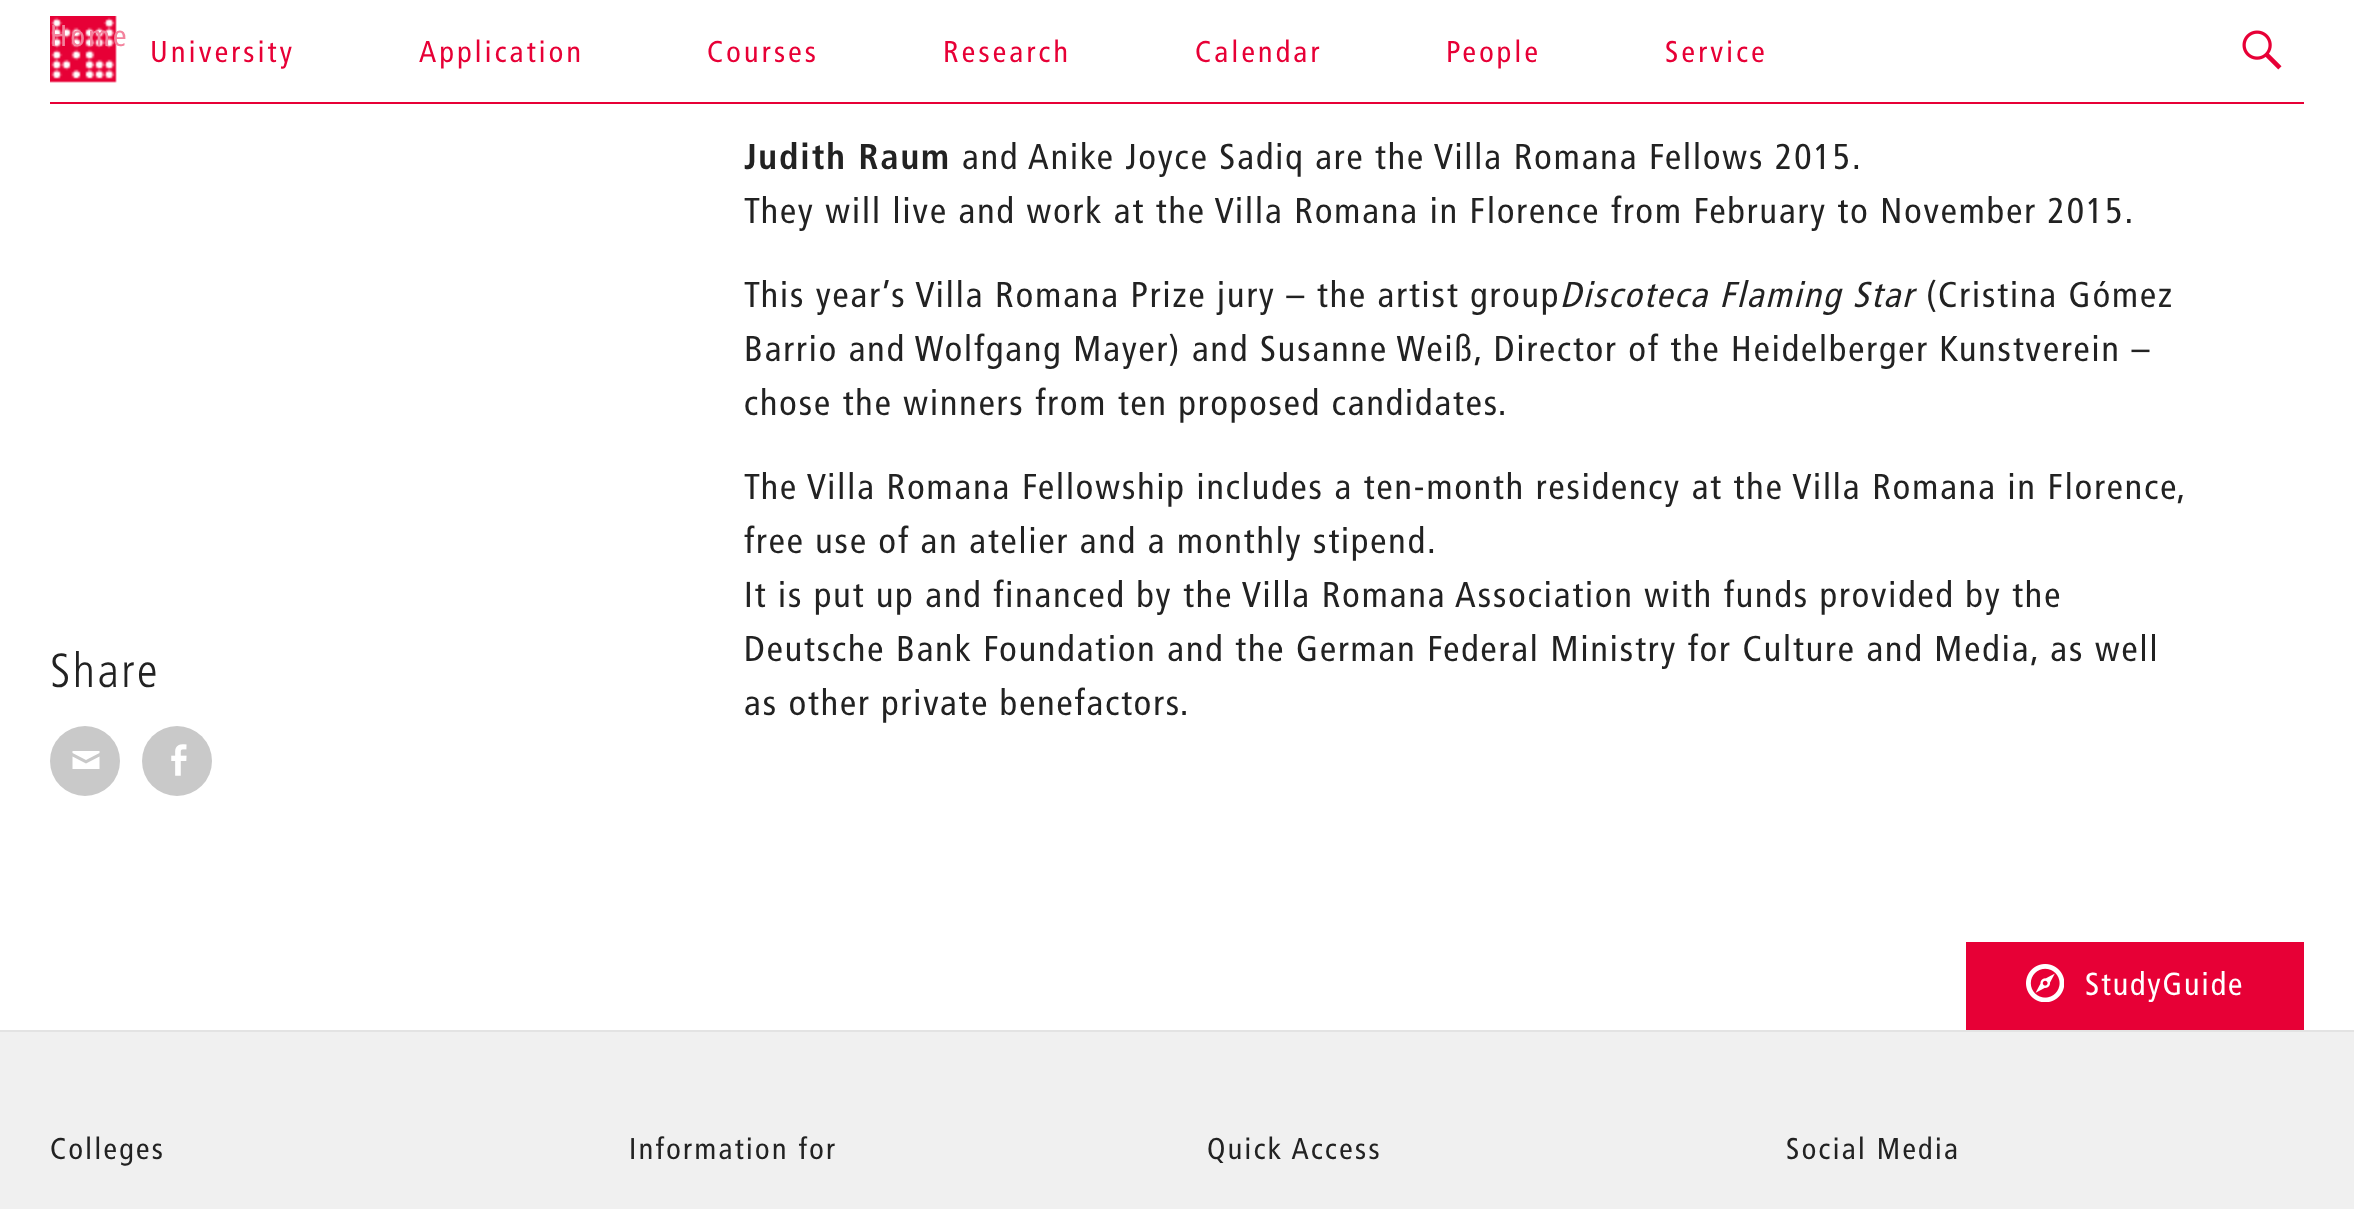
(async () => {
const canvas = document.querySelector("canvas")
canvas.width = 2354
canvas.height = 1209
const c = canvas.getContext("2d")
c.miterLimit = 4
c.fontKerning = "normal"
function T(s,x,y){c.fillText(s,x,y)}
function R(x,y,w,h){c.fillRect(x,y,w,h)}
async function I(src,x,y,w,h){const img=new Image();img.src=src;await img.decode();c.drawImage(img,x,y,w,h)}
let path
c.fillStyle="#fff"
R(0,0,2354,1209)
c.fillStyle="#e70036"
R(50,102,2254,2)
await I("1.png",50,16,67,67)
c.letterSpacing="3.25px"
c.font="30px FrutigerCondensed"
c.fillStyle="#f3839d"
T("Home",50,46)
c.fillStyle="#e70036"
T("University",150,62)
T("Application",419,62)
T("Courses",707,62)
T("Research",943,62)
T("Calendar",1195,62)
T("People",1446,62)
T("Service",1665,62)
await I("2.png",2242,30,40,40)
c.letterSpacing="2.4px"
c.font="300 48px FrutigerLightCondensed"
c.fillStyle="#222"
T("Share",50,687)
c.fillStyle="#c9c9c9"
c.beginPath()
c.arc(85,761,35,0,7)
c.fill()
c.fillStyle="#fff"
path = new Path2D("M72.5 751h27v2l-13.5 7l-13.5-7zm0 5.5l13.5 7l13.5-7v12.5h-27z")
c.fill(path)
c.fillStyle="#c9c9c9"
c.beginPath()
c.arc(177,761,35,0,7)
c.fill()
await I("3.png",171,744,16,32)
c.letterSpacing="2px"
c.font="bold 36px FrutigerCondensed"
c.fillStyle="#222"
T("Judith Raum",744,169)
c.font="36px FrutigerCondensed"
T("and Anike Joyce Sadiq are the Villa Romana Fellows 2015.",962,169)
T("They will live and work at the Villa Romana in Florence from February to November 2015.",744,223)
T("This year’s Villa Romana Prize jury – the artist group",744,307)
c.font="italic 36px FrutigerCondensed"
T("Discoteca Flaming Star",1560,307)
c.font="36px FrutigerCondensed"
T("(Cristina Gómez",1926,307)
T("Barrio and Wolfgang Mayer) and Susanne Weiß, Director of the Heidelberger Kunstverein –",744,361)
T("chose the winners from ten proposed candidates.",744,415)
T("The Villa Romana Fellowship includes a ten-month residency at the Villa Romana in Florence,",744,499)
T("free use of an atelier and a monthly stipend.",744,553)
T("It is put up and financed by the Villa Romana Association with funds provided by the",744,607)
T("Deutsche Bank Foundation and the German Federal Ministry for Culture and Media, as well",744,661)
T("as other private benefactors.",744,715)
c.fillStyle="#e70036"
R(1966,942,338,88)
await I("4.png",2026,964,38,38)
c.font="32px FrutigerCondensed"
c.fillStyle="#fff"
T("StudyGuide",2085,995)
c.fillStyle="#f0f0f0"
R(0,1032,2354,177)
c.fillStyle="#e3e3e3"
R(0,1030,2354,2)
c.letterSpacing="2.4px"
c.font="30px FrutigerCondensed"
c.fillStyle="#222"
T("Colleges",50,1159)
T("Information for",629,1159)
T("Quick Access",1207,1159)
T("Social Media",1786,1159)
})()
